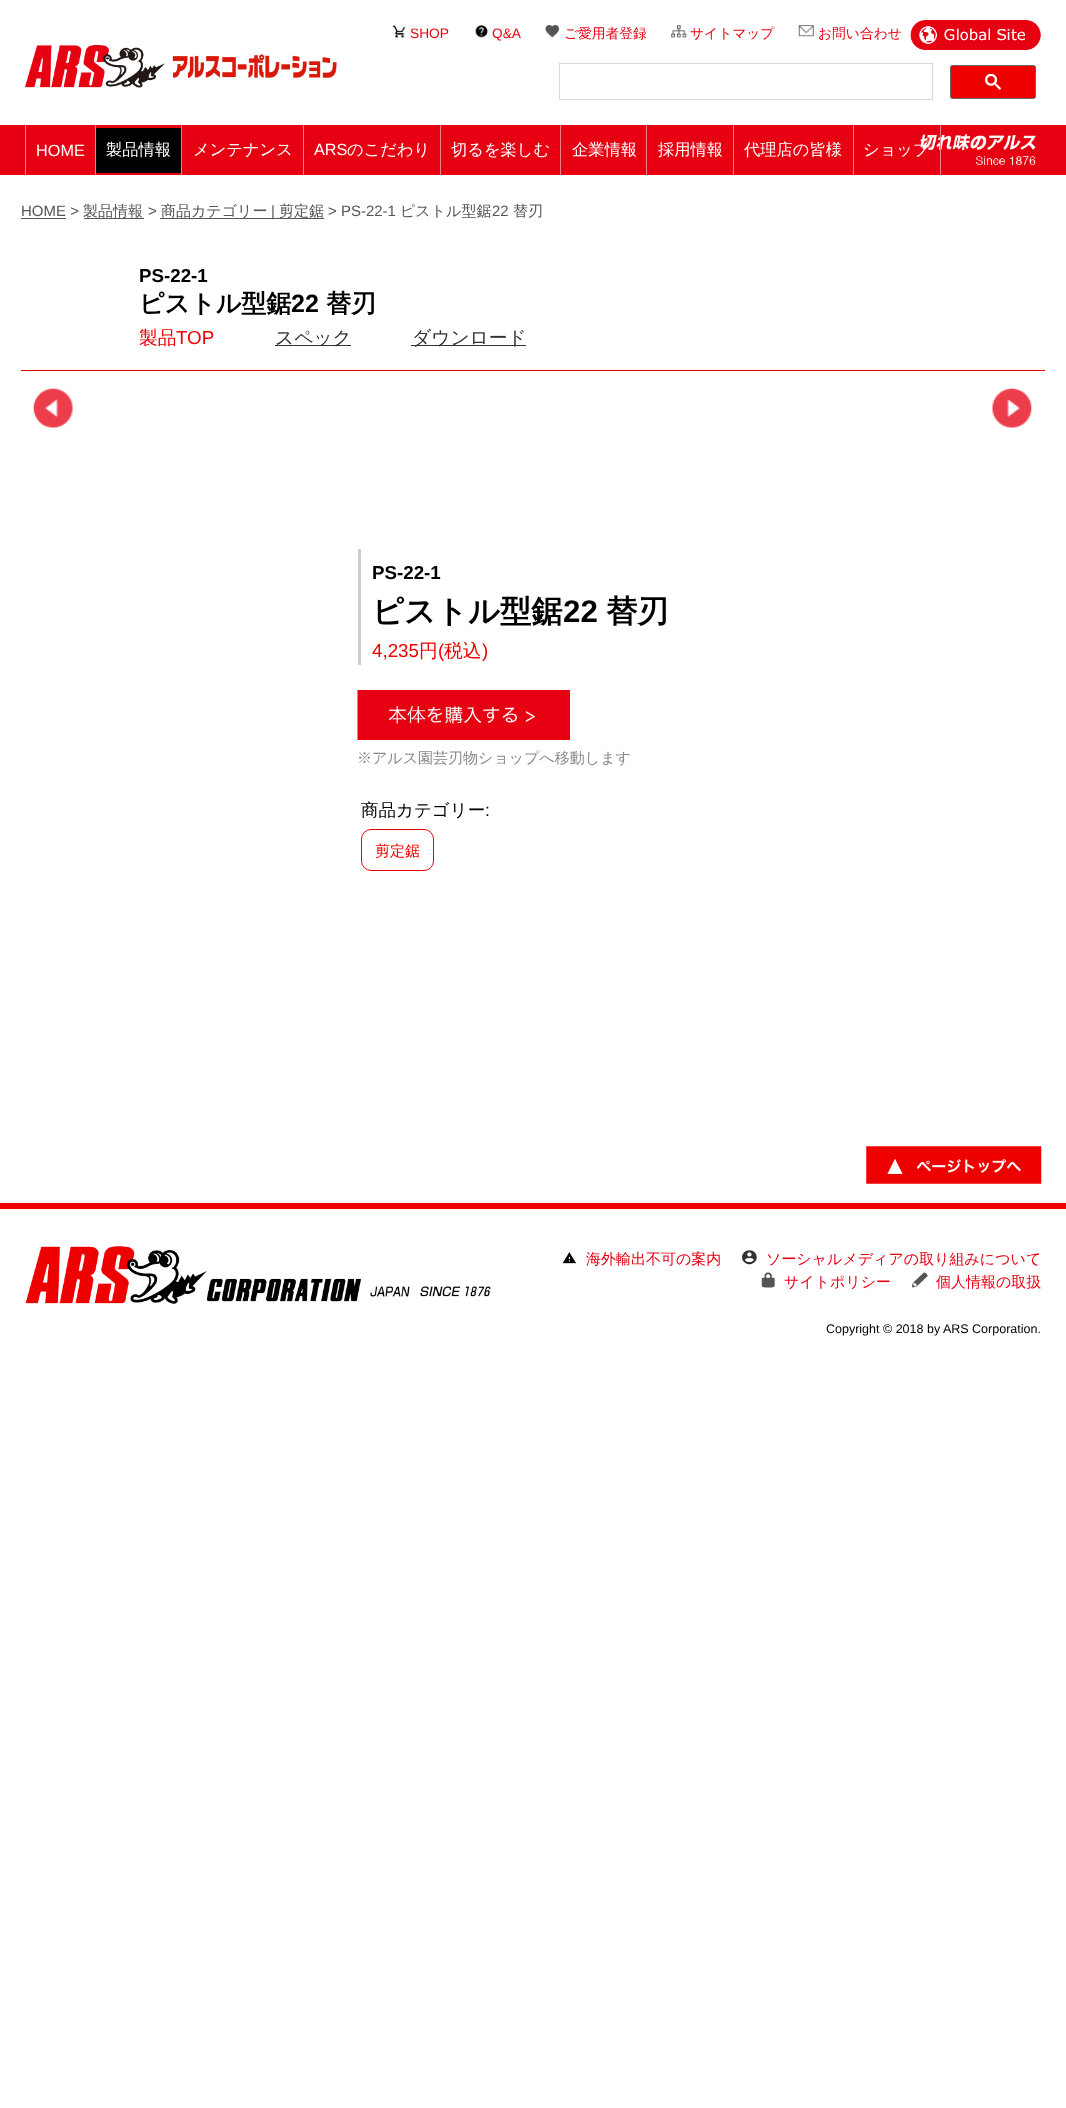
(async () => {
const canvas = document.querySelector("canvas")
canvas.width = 1066
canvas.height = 2108
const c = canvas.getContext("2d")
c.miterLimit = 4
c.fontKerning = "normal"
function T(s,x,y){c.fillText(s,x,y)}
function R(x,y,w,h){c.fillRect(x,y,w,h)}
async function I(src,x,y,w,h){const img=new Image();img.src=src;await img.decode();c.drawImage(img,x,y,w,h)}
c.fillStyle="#fff"
R(0,0,1066,2108)
await I("1.png",392,25,14,13)
c.font="13.75px Liberation Sans"
c.fillStyle="#e60012"
T("SHOP",410,38)
await I("2.png",475,25,13,13)
T("Q&A",492,38)
await I("3.png",545,25,15,13)
c.font="500 13.75px WenQuanYi Zen Hei"
T("ご愛用者登録",564,38)
await I("4.png",671,25,16,13)
T("サイトマップ",690,38)
await I("5.png",798,25,16,12)
T("お問い合わせ",818,38)
await I("6.png",910,20,131,30)
await I("7.png",25,45,312,43)
c.strokeStyle="#d9d9d9"
c.strokeRect(559.5,63.5,373,36)
c.fillStyle="#ef0000"
c.beginPath()
c.roundRect(950.5,65.5,85,33,2)
c.fill()
c.strokeStyle="#666"
c.stroke()
await I("8.png",985,74,16,16)
c.fillStyle="#e60012"
R(0,125,1066,50)
await I("9.png",920,134,116,31)
c.fillStyle="#f38089"
R(95,125,1,50)
R(25,125,1,50)
c.font="16.25px Liberation Sans"
c.fillStyle="#fff"
T("HOME",36,156)
c.fillStyle="#f38089"
R(181,125,1,50)
c.fillStyle="#000"
R(96,128,85,45)
c.font="500 16.25px WenQuanYi Zen Hei"
c.fillStyle="#fff"
T("製品情報",106,155)
c.fillStyle="#f38089"
R(303,125,1,50)
c.fillStyle="#fff"
T("メンテナンス",193,155)
c.fillStyle="#f38089"
R(440,125,1,50)
c.font="16.25px Liberation Sans"
c.fillStyle="#fff"
T("ARS",314,155)
c.font="500 16.25px WenQuanYi Zen Hei"
T("のこだわり",347,155)
c.fillStyle="#f38089"
R(560,125,1,50)
c.fillStyle="#fff"
T("切るを楽しむ",451,155)
c.fillStyle="#f38089"
R(646,125,1,50)
c.fillStyle="#fff"
T("企業情報",572,155)
c.fillStyle="#f38089"
R(733,125,1,50)
c.fillStyle="#fff"
T("採用情報",658,155)
c.fillStyle="#f38089"
R(853,125,1,50)
c.fillStyle="#fff"
T("代理店の皆様",744,155)
c.fillStyle="#f38089"
R(940,125,1,50)
c.fillStyle="#fff"
T("ショップ",863,155)
c.font="15px Liberation Sans"
c.fillStyle="#555"
T("HOME >",21,216)
R(21,218,45,1)
c.font="500 15px WenQuanYi Zen Hei"
T("製品情報",83,216)
R(84,218,60,1)
c.font="15px Liberation Sans"
T(">",148,216)
R(160,218,164,1)
c.font="500 15px WenQuanYi Zen Hei"
T("商品カテゴリー",161,216)
c.font="15px Liberation Sans"
T("|",271,216)
c.font="500 15px WenQuanYi Zen Hei"
T("剪定鋸",279,216)
c.font="15px Liberation Sans"
T("> PS-22-1",328,216)
c.font="500 15px WenQuanYi Zen Hei"
T("ピストル型鋸",400,216)
c.font="15px Liberation Sans"
T("22",492,216)
c.font="500 15px WenQuanYi Zen Hei"
T("替刃",513,216)
c.fillStyle="#ef0000"
R(21,370,1024,1)
c.font="bold 18.75px Liberation Sans"
c.fillStyle="#000"
T("PS-22-1",139,282)
c.font="bold 25px WenQuanYi Zen Hei"
T("ピストル型鋸",139,312)
c.font="bold 25px Liberation Sans"
T("22",291,312)
c.font="bold 25px WenQuanYi Zen Hei"
T("替刃",326,312)
c.font="500 18.75px WenQuanYi Zen Hei"
c.fillStyle="#ef0000"
T("製品",139,344)
c.font="18.75px Liberation Sans"
T("TOP",176,344)
c.fillStyle="#333"
R(275,345,76,1)
c.font="500 18.75px WenQuanYi Zen Hei"
T("スペック",275,344)
R(411,345,115,1)
T("ダウンロード",412,344)
await I("10.png",33,388,40,40)
await I("11.png",992,388,40,40)
c.fillStyle="#ccc"
R(358,549,3,116)
c.font="bold 18.75px Liberation Sans"
c.fillStyle="#000"
T("PS-22-1",372,579)
c.font="bold 31.25px WenQuanYi Zen Hei"
T("ピストル型鋸",372,622)
c.font="bold 31.25px Liberation Sans"
T("22",563,622)
c.font="bold 31.25px WenQuanYi Zen Hei"
T("替刃",606,622)
c.font="18.75px Liberation Sans"
c.fillStyle="#ef0000"
T("4,235",372,657)
c.font="500 18.75px WenQuanYi Zen Hei"
T("円",419,657)
c.font="18.75px Liberation Sans"
T("(",438,657)
c.font="500 18.75px WenQuanYi Zen Hei"
T("税込",444,657)
c.font="18.75px Liberation Sans"
T(")",482,657)
await I("12.png",357,690,213,50)
c.font="500 15px WenQuanYi Zen Hei"
c.fillStyle="#888"
T("※アルス園芸刃物ショップへ移動します",357,763)
c.font="500 17.5px WenQuanYi Zen Hei"
c.fillStyle="#000"
T("商品カテゴリー",361,816)
c.font="17.5px Liberation Sans"
T(":",485,816)
c.beginPath()
c.roundRect(361.5,829.5,72,41,9.5)
c.strokeStyle="#ef0000"
c.stroke()
c.font="500 15px WenQuanYi Zen Hei"
c.fillStyle="#ef0000"
T("剪定鋸",375,856)
R(0,1203,1066,6)
await I("13.png",866,1146,176,38)
await I("14.png",25,1246,466,58)
await I("15.png",562,1252,14,12)
c.fillStyle="#e60012"
T("海外輸出不可の案内",586,1264)
await I("16.png",742,1250,15,15)
T("ソーシャルメディアの取り組みについて",766,1264)
await I("17.png",761,1272,14,16)
T("サイトポリシー",784,1287)
await I("18.png",912,1272,16,16)
T("個人情報の取扱",936,1287)
c.font="12.5px Liberation Sans"
c.fillStyle="#000"
T("Copyright © 2018 by ARS Corporation.",826,1333)
})()
